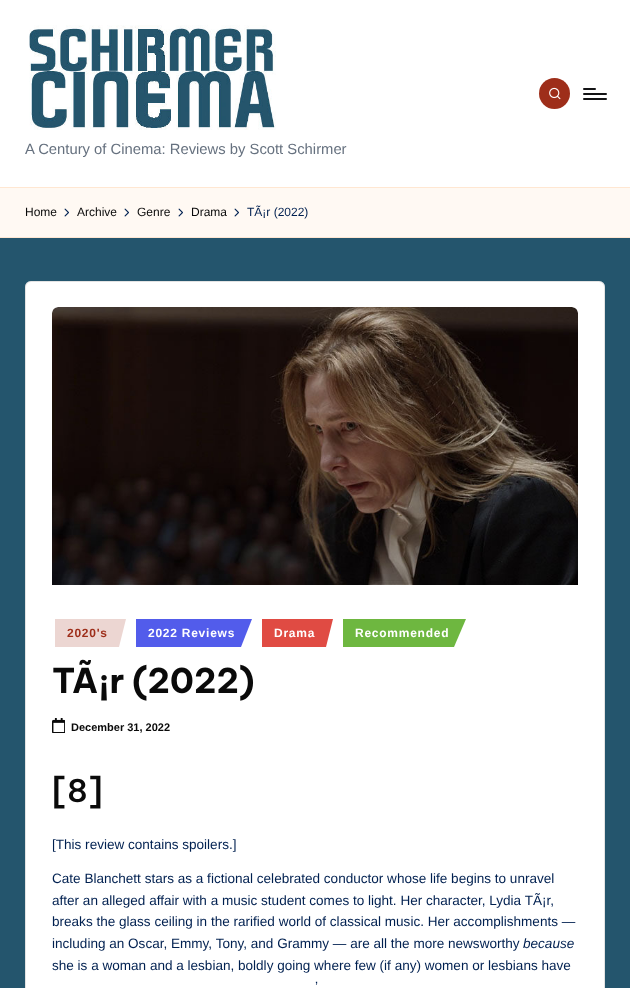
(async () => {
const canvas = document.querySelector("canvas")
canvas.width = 630
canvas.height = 988
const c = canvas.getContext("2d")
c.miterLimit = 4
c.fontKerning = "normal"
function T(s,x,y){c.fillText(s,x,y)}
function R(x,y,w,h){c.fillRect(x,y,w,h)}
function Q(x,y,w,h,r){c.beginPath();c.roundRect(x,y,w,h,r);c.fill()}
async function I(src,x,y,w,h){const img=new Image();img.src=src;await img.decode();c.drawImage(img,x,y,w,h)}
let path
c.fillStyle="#24556d"
R(0,0,630,988)
c.fillStyle="#fff"
R(0,0,630,187)
c.fillStyle="#9e2e1a"
c.beginPath()
c.arc(554.5,93.5,15.5,0,7)
c.fill()
await I("1.png",549,87,12,13)
c.fillStyle="#131315"
Q(583,93,24,2,1)
Q(583,88,13,2,1)
Q(583,98,24,2,1)
await I("2.png",29,25,247,105)
c.font="14.8px Liberation Sans"
c.fillStyle="#66717f"
T("A Century of Cinema: Reviews by Scott Schirmer",25,154)
c.fillStyle="#fff9f3"
R(0,188,630,49)
c.fillStyle="#ffe7d2"
R(0,187,630,1)
R(0,237,630,1)
c.font="12px Liberation Sans"
c.fillStyle="#0a0a0a"
T("Home",25,216)
await I("3.png",64,208,5,9)
T("Archive",77,216)
await I("3.png",124,208,5,9)
T("Genre",137,216)
await I("3.png",178,208,5,9)
T("Drama",191,216)
await I("3.png",234,208,5,9)
c.fillStyle="#002050"
T("TÃ¡r (2022)",247,216)
c.fillStyle="#fff"
Q(25,281,580,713,6)
c.beginPath()
c.roundRect(25.5,281.5,579,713,5.5)
c.strokeStyle="#b9b9b966"
c.stroke()
await I("4.png",52,307,526,278)
c.fillStyle="#ecd6d2"
path = new Path2D("M55 647v-28h71l-7 28z")
c.fill(path)
c.letterSpacing="0.75px"
c.font="bold 12px Liberation Sans"
c.fillStyle="#9e2e1a"
T("2020's",67,637)
c.fillStyle="#525ceb"
path = new Path2D("M136 619h116l-11 28h-105z")
c.fill(path)
c.fillStyle="#fff"
T("2022 Reviews",148,637)
c.fillStyle="#e04b43"
path = new Path2D("M262 619h71l-7 28h-64z")
c.fill(path)
c.fillStyle="#fff"
T("Drama",274,637)
c.fillStyle="#6eb740"
path = new Path2D("M343 619h123l-12 28h-111z")
c.fill(path)
c.fillStyle="#fff"
T("Recommended",355,637)
c.letterSpacing="0px"
c.font="bold 34px Be Vietnam Pro"
c.fillStyle="#0a0a0a"
T("TÃ¡r (2022)",52,693)
await I("5.png",52,718,13,15)
c.font="bold 11px Liberation Sans"
T("December 31, 2022",71,731)
c.font="600 31px Be Vietnam Pro"
T("[8]",52,802)
c.font="13.55px Liberation Sans"
c.fillStyle="#002050"
T("[This review contains spoilers.]",52,849)
T("Cate Blanchett stars as a fictional celebrated conductor whose life begins to unravel",52,883)
T("after an alleged affair with a music student comes to light. Her character, Lydia TÃ¡r,",52,905)
T("breaks the glass ceiling in the rarified world of classical music. Her accomplishments —",52,926)
T("including an Oscar, Emmy, Tony, and Grammy — are all the more newsworthy",52,948)
c.font="italic 13.55px Liberation Sans"
T("because",523,948)
c.font="13.55px Liberation Sans"
T("she is a woman and a lesbian, boldly going where few (if any) women or lesbians have",52,970)
T("’",315,991)
})()
